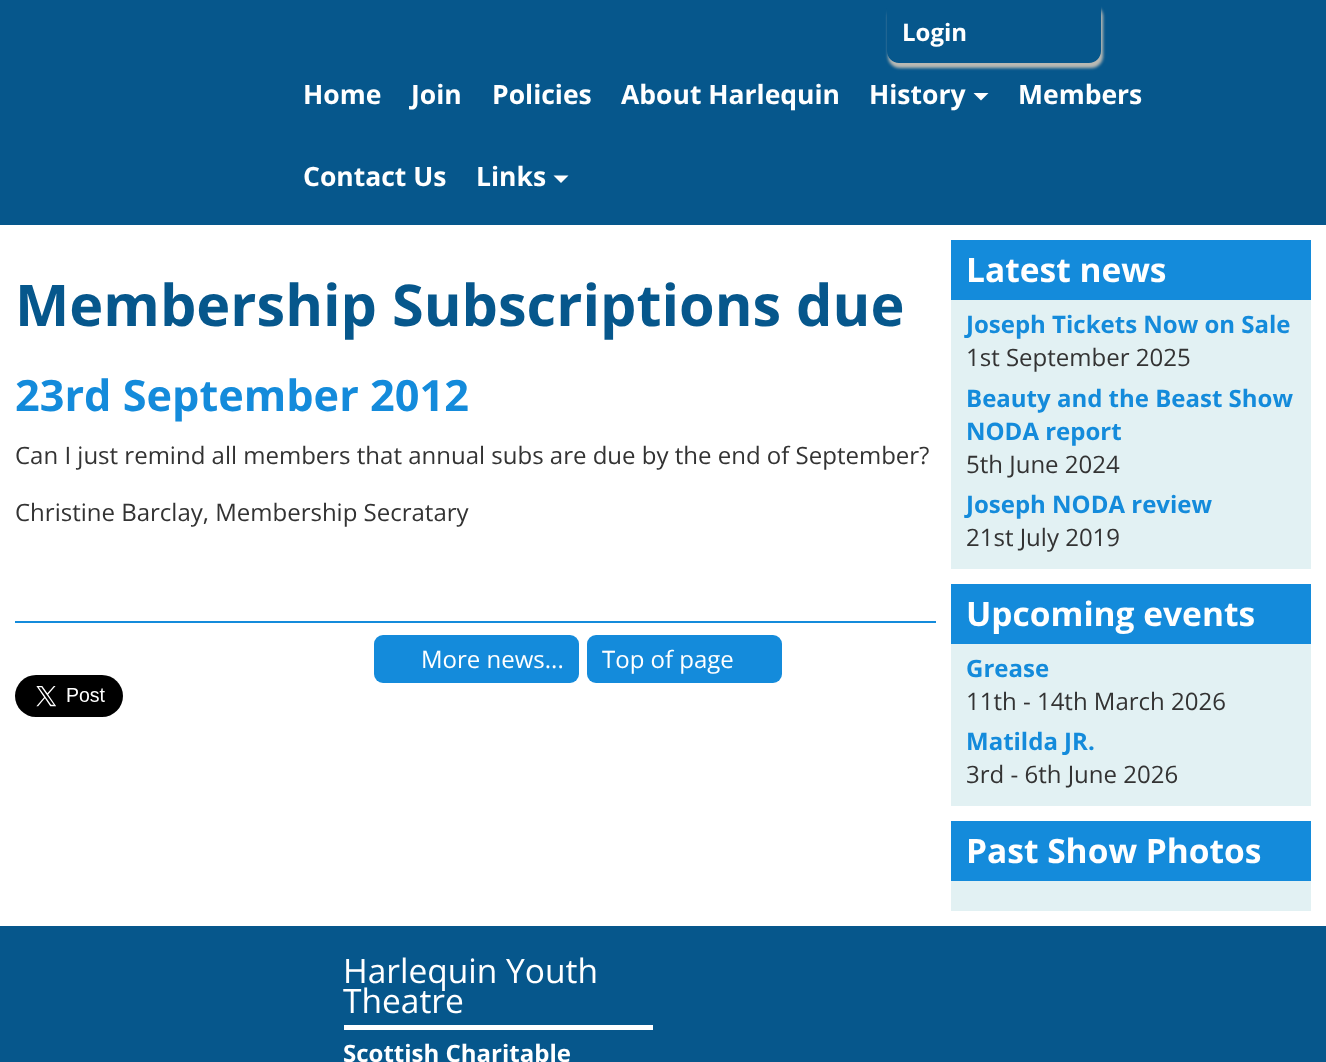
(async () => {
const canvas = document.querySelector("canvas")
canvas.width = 1326
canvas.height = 1062
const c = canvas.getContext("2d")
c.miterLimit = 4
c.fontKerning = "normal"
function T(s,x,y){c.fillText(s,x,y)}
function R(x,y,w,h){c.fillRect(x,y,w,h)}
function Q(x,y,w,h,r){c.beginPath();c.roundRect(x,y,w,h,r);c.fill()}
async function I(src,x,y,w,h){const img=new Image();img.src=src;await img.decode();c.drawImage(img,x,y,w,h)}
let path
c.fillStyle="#06578c"
R(0,0,1326,1062)
c.save()
path = new Path2D("M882 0h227v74h-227zm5 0h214v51c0 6.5-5.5 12-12 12h-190c-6.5 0-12-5.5-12-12z")
c.clip(path,"evenodd")
c.fillStyle="#b9b9b3"
c.filter="blur(1.5px)"
c.beginPath()
c.roundRect(888,5,215,63,12)
c.fill()
c.filter="none"
c.restore()
c.font="bold 24px Open Sans"
c.fillStyle="#fff"
T("Login",902,41)
c.font="bold 26.5px Open Sans"
T("Home",303,104)
T("Join",411,104)
T("Policies",492,104)
T("About Harlequin",621,104)
T("History",869,104)
path = new Path2D("M973.5 93h15l-7.5 7.5z")
c.fill(path)
T("Members",1018,104)
T("Contact Us",303,186)
T("Links",476,186)
path = new Path2D("M553.5 175.5h15l-7.5 7.5z")
c.fill(path)
R(0,225,1326,701)
c.font="bold 57.6px Open Sans"
c.fillStyle="#06578c"
T("Membership Subscriptions due",15,326)
c.font="bold 43.25px Open Sans"
c.fillStyle="#148bdb"
T("23rd September 2012",15,411)
c.font="24px Open Sans"
c.fillStyle="#333"
T("Can I just remind all members that annual subs are due by the end of September?",15,464)
T("Christine Barclay, Membership Secratary",15,521)
c.fillStyle="#148bdb"
R(15,621,921,2)
Q(374,635,205,48,9)
c.fillStyle="#fff"
T("More news...",421,668)
c.fillStyle="#148bdb"
Q(587,635,195,48,9)
c.fillStyle="#fff"
T("Top of page",602,668)
await I("1.png",15,675,108,42)
c.fillStyle="#e2f1f3"
R(951,300,360,269)
c.fillStyle="#148bdb"
R(951,240,360,60)
c.font="bold 33.5px Open Sans"
c.fillStyle="#fff"
T("Latest news",966,282)
c.font="bold 24px Open Sans"
c.fillStyle="#148bdb"
T("Joseph Tickets Now on Sale",966,333)
c.font="24px Open Sans"
c.fillStyle="#333"
T("1st September 2025",966,366)
c.font="bold 24px Open Sans"
c.fillStyle="#148bdb"
T("Beauty and the Beast Show",966,407)
T("NODA report",966,440)
c.font="24px Open Sans"
c.fillStyle="#333"
T("5th June 2024",966,473)
c.font="bold 24px Open Sans"
c.fillStyle="#148bdb"
T("Joseph NODA review",966,513)
c.font="24px Open Sans"
c.fillStyle="#333"
T("21st July 2019",966,546)
c.fillStyle="#e2f1f3"
R(951,644,360,162)
c.fillStyle="#148bdb"
R(951,584,360,60)
c.font="bold 33.5px Open Sans"
c.fillStyle="#fff"
T("Upcoming events",966,626)
c.font="bold 24px Open Sans"
c.fillStyle="#148bdb"
T("Grease",966,677)
c.font="24px Open Sans"
c.fillStyle="#333"
T("11th - 14th March 2026",966,710)
c.font="bold 24px Open Sans"
c.fillStyle="#148bdb"
T("Matilda JR.",966,750)
c.font="24px Open Sans"
c.fillStyle="#333"
T("3rd - 6th June 2026",966,783)
c.fillStyle="#e2f1f3"
R(951,881,360,30)
c.fillStyle="#148bdb"
R(951,821,360,60)
c.font="bold 33.5px Open Sans"
c.fillStyle="#fff"
T("Past Show Photos",966,863)
R(344,1025,309,5)
c.font="33.5px Open Sans"
T("Harlequin Youth",343,983)
T("Theatre",343,1013)
c.font="bold 24px Open Sans"
T("Scottish Charitable",343,1062)
})()
